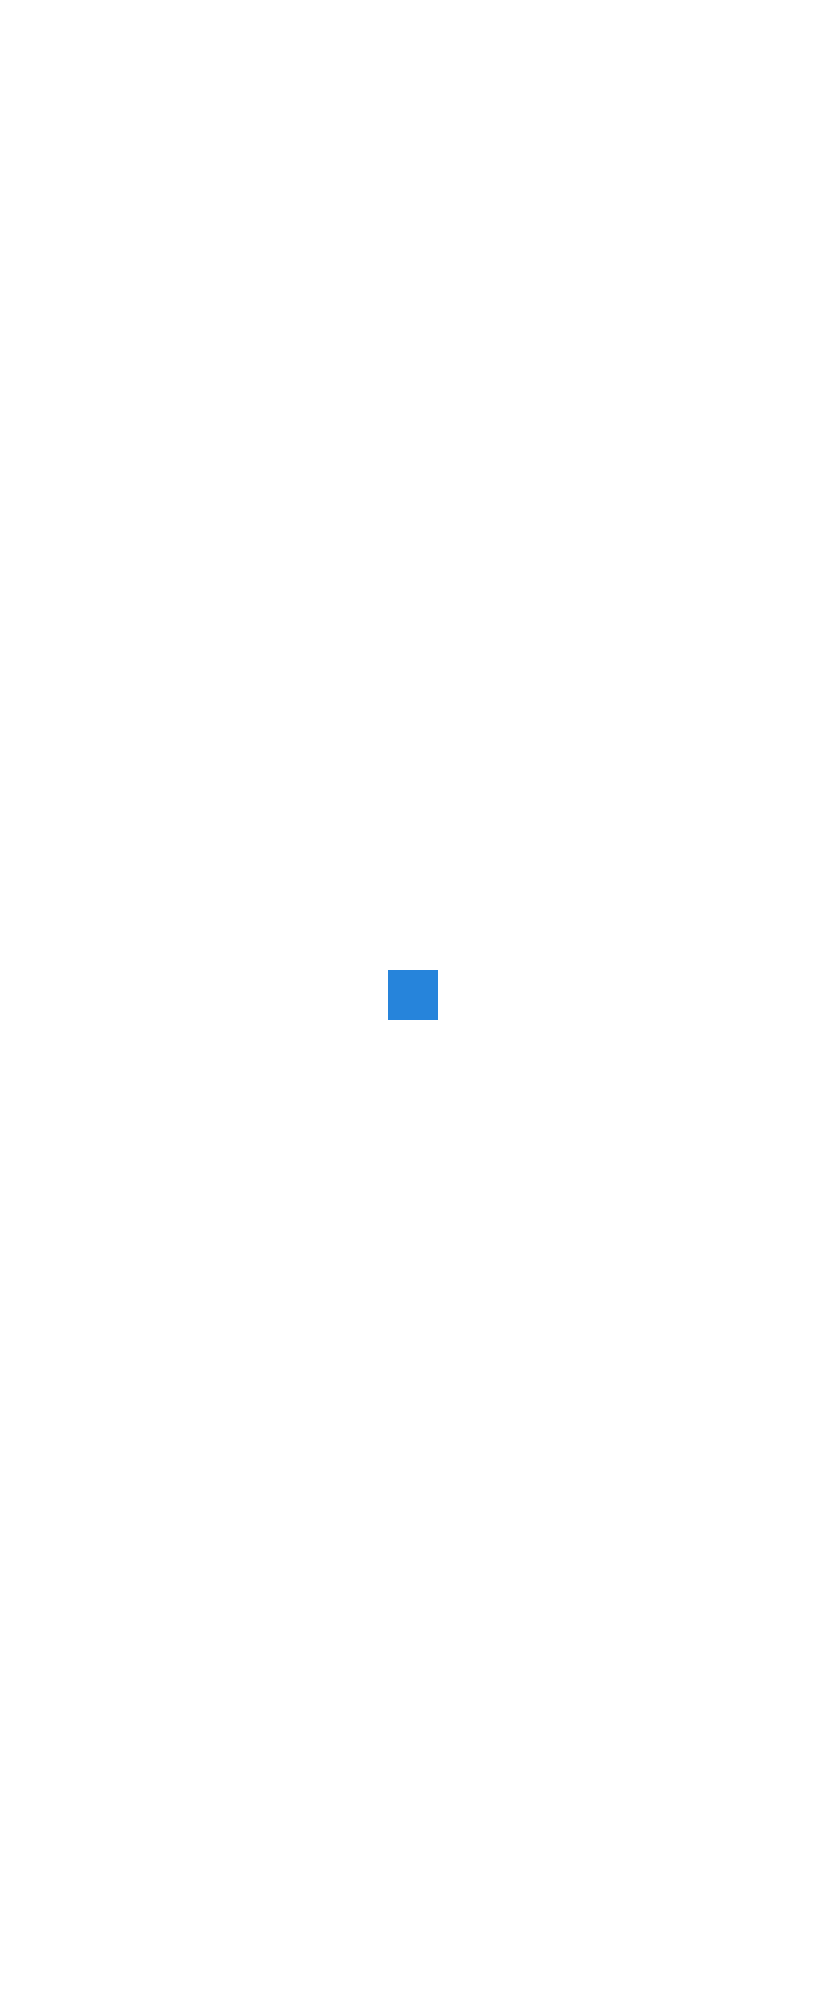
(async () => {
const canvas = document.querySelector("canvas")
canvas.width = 823
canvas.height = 1990
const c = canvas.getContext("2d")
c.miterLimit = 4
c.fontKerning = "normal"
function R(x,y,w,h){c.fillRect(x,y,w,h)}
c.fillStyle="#fff"
R(0,0,823,1990)
c.fillStyle="#2684db"
R(388,970,50,50)
})()
